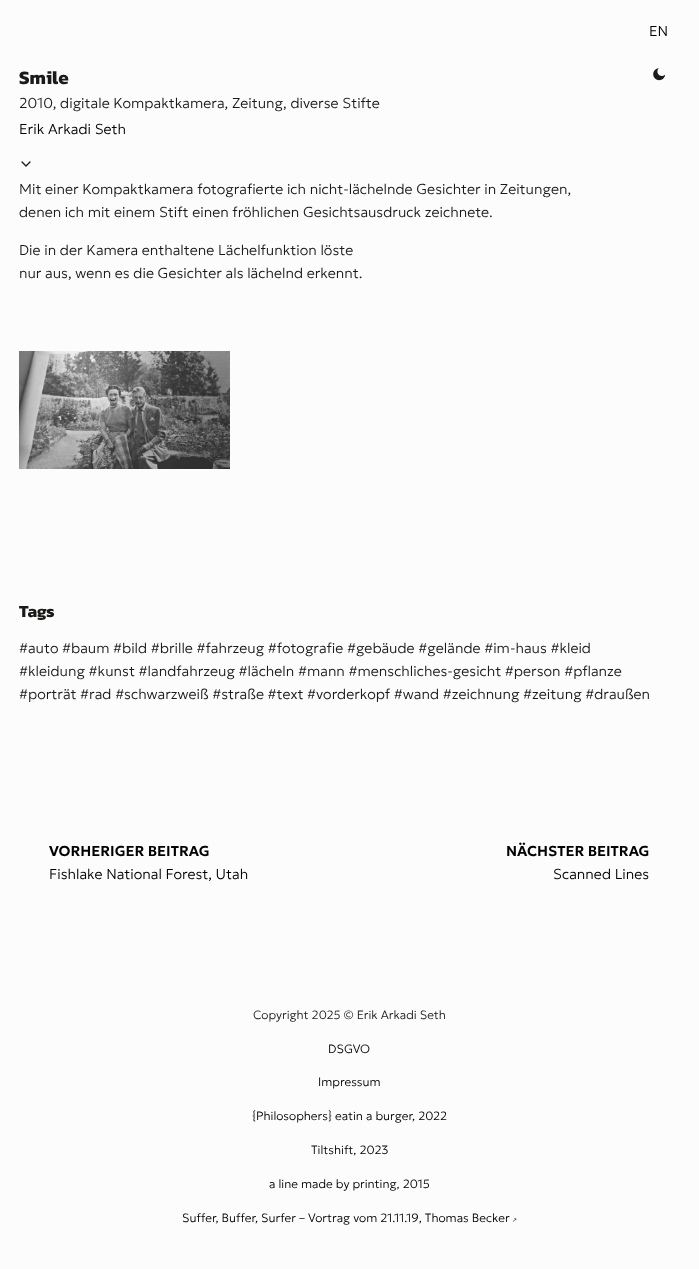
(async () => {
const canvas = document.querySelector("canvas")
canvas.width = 699
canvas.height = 1269
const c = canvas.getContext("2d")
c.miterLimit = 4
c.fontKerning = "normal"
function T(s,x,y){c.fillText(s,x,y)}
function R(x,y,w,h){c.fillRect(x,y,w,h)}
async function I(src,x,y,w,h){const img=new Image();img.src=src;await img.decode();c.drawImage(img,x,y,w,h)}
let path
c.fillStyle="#fcfcfc"
R(0,0,699,1269)
c.font="200 14.4px Geologica"
c.fillStyle="#000"
T("EN",649,36)
await I("1.png",653,68,13,13)
c.font="bold 19px Kanit"
c.fillStyle="#1a1a19"
T("Smile",19,84)
c.font="200 14.4px Geologica"
T("2010, digitale Kompaktkamera, Zeitung, diverse Stifte",19,108)
c.fillStyle="#000"
T("Erik Arkadi Seth",19,134)
path = new Path2D("M22 162l4 4l4-4")
c.strokeStyle="#1a1a19"
c.lineWidth=1.3
c.lineCap="round"
c.lineJoin="round"
c.stroke(path)
c.fillStyle="#1a1a19"
T("Mit einer Kompaktkamera fotografierte ich nicht-lächelnde Gesichter in Zeitungen,",19,194)
T("denen ich mit einem Stift einen fröhlichen Gesichtsausdruck zeichnete.",19,217)
T("Die in der Kamera enthaltene Lächelfunktion löste",19,255)
T("nur aus, wenn es die Gesichter als lächelnd erkennt.",19,278)
await I("2.png",19,351,211,118)
c.font="bold 17px Kanit"
T("Tags",19,617)
c.font="200 14.4px Geologica"
T("#auto #baum #bild #brille #fahrzeug #fotografie #gebäude #gelände #im-haus #kleid",19,653)
T("#kleidung #kunst #landfahrzeug #lächeln #mann #menschliches-gesicht #person #pflanze",19,676)
T("#porträt #rad #schwarzweiß #straße #text #vorderkopf #wand #zeichnung #zeitung #draußen",19,699)
c.font="600 14.4px Geologica"
c.fillStyle="#000"
T("VORHERIGER BEITRAG",49,856)
c.font="200 14.4px Geologica"
T("Fishlake National Forest, Utah",49,879)
c.font="600 14.4px Geologica"
T("NÄCHSTER BEITRAG",506,856)
c.font="200 14.4px Geologica"
T("Scanned Lines",553,879)
c.font="200 12px Geologica"
c.fillStyle="#1a1a19"
T("Copyright 2025 © Erik Arkadi Seth",253,1019)
c.fillStyle="#000"
T("DSGVO",328,1053)
T("Impressum",318,1086)
T("{Philosophers} eatin a burger, 2022",252,1120)
T("Tiltshift, 2023",311,1154)
T("a line made by printing, 2015",269,1188)
T("Suffer, Buffer, Surfer – Vortrag vom 21.11.19, Thomas Becker",182,1222)
c.font="6px DejaVu Sans"
T("↗",512,1222)
})()
